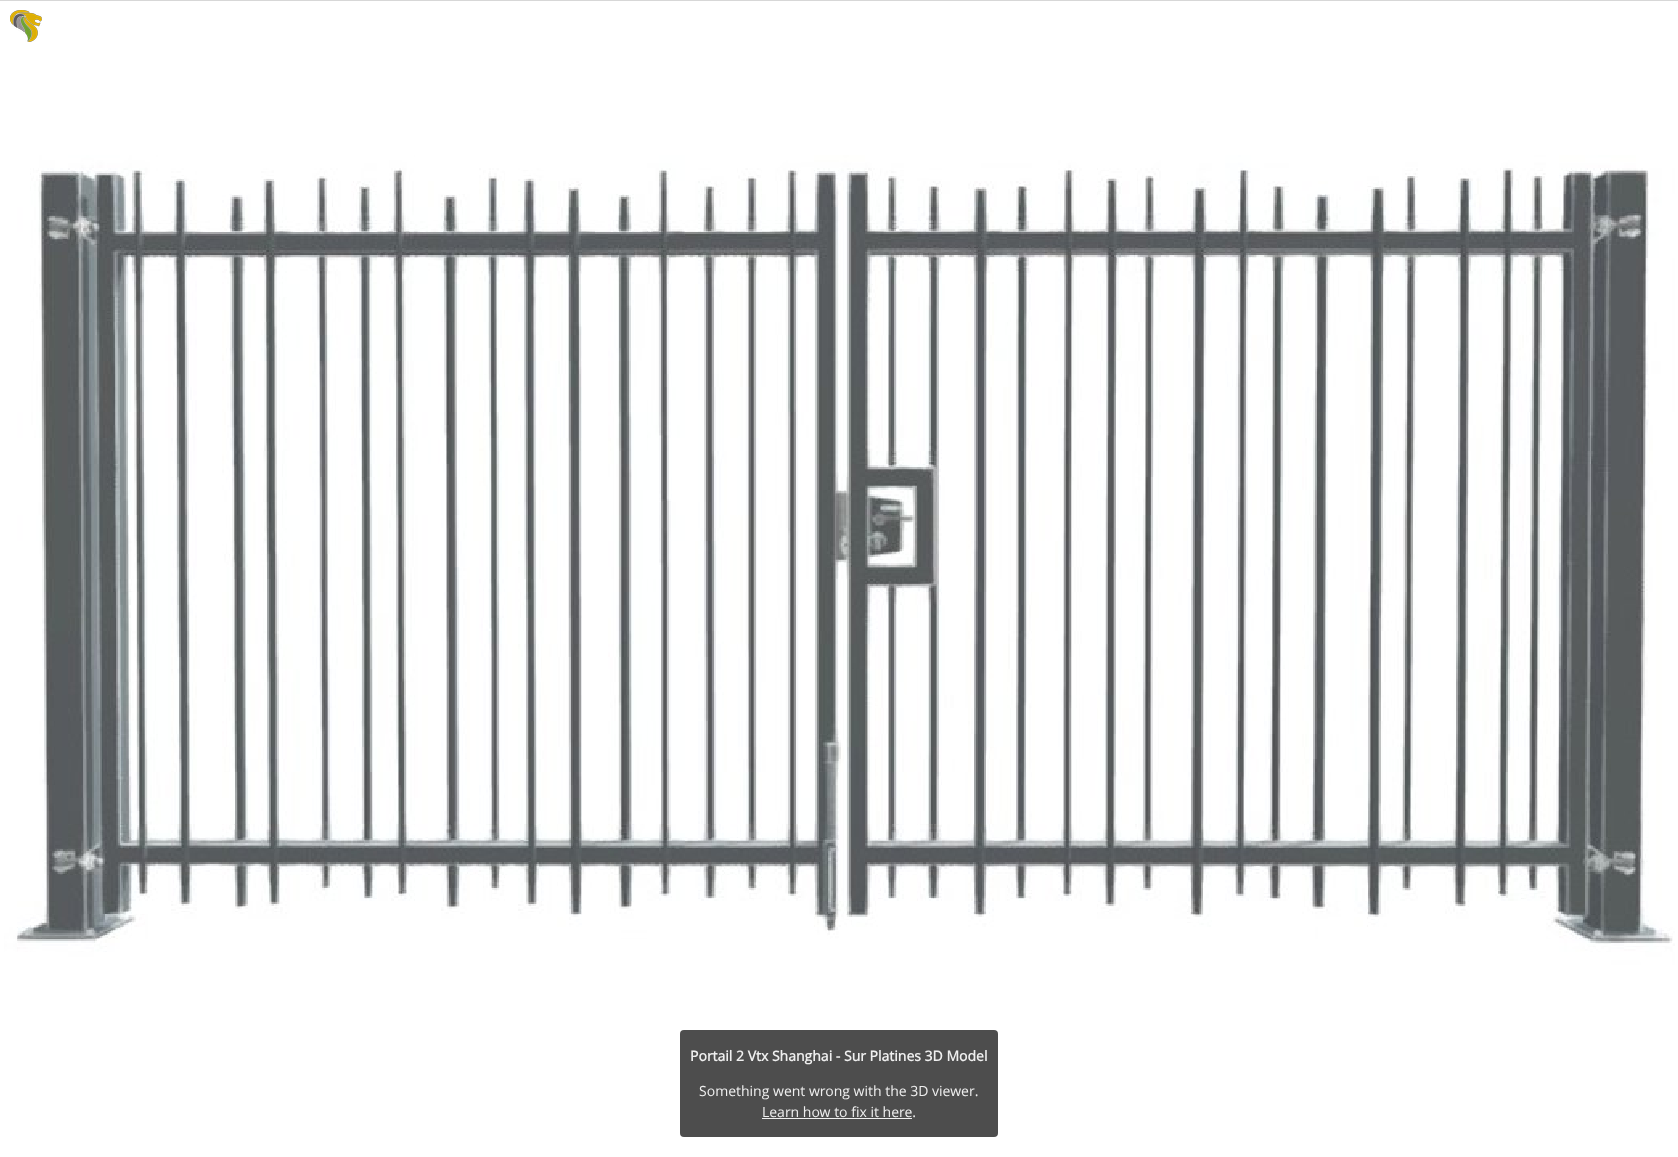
(async () => {
const canvas = document.querySelector("canvas")
canvas.width = 1678
canvas.height = 1157
const c = canvas.getContext("2d")
c.miterLimit = 4
c.fontKerning = "normal"
function T(s,x,y){c.fillText(s,x,y)}
function R(x,y,w,h){c.fillRect(x,y,w,h)}
function Q(x,y,w,h,r){c.beginPath();c.roundRect(x,y,w,h,r);c.fill()}
async function I(src,x,y,w,h){const img=new Image();img.src=src;await img.decode();c.drawImage(img,x,y,w,h)}
c.fillStyle="#d7d7d7"
R(0,0,1678,1157)
await I("2.png",0,1,1678,1156)
await I("1.png",10,10,32,32)
c.fillStyle="#4d4d4d"
Q(680,1030,318,107,4)
c.font="bold 14px Open Sans"
c.fillStyle="#efefef"
T("Portail 2 Vtx Shanghai - Sur Platines 3D Model",690,1061)
c.font="14px Open Sans"
T("Something went wrong with the 3D viewer.",699,1096)
T("Learn how to fix it here.",762,1117)
R(762,1118,150,1)
})()
